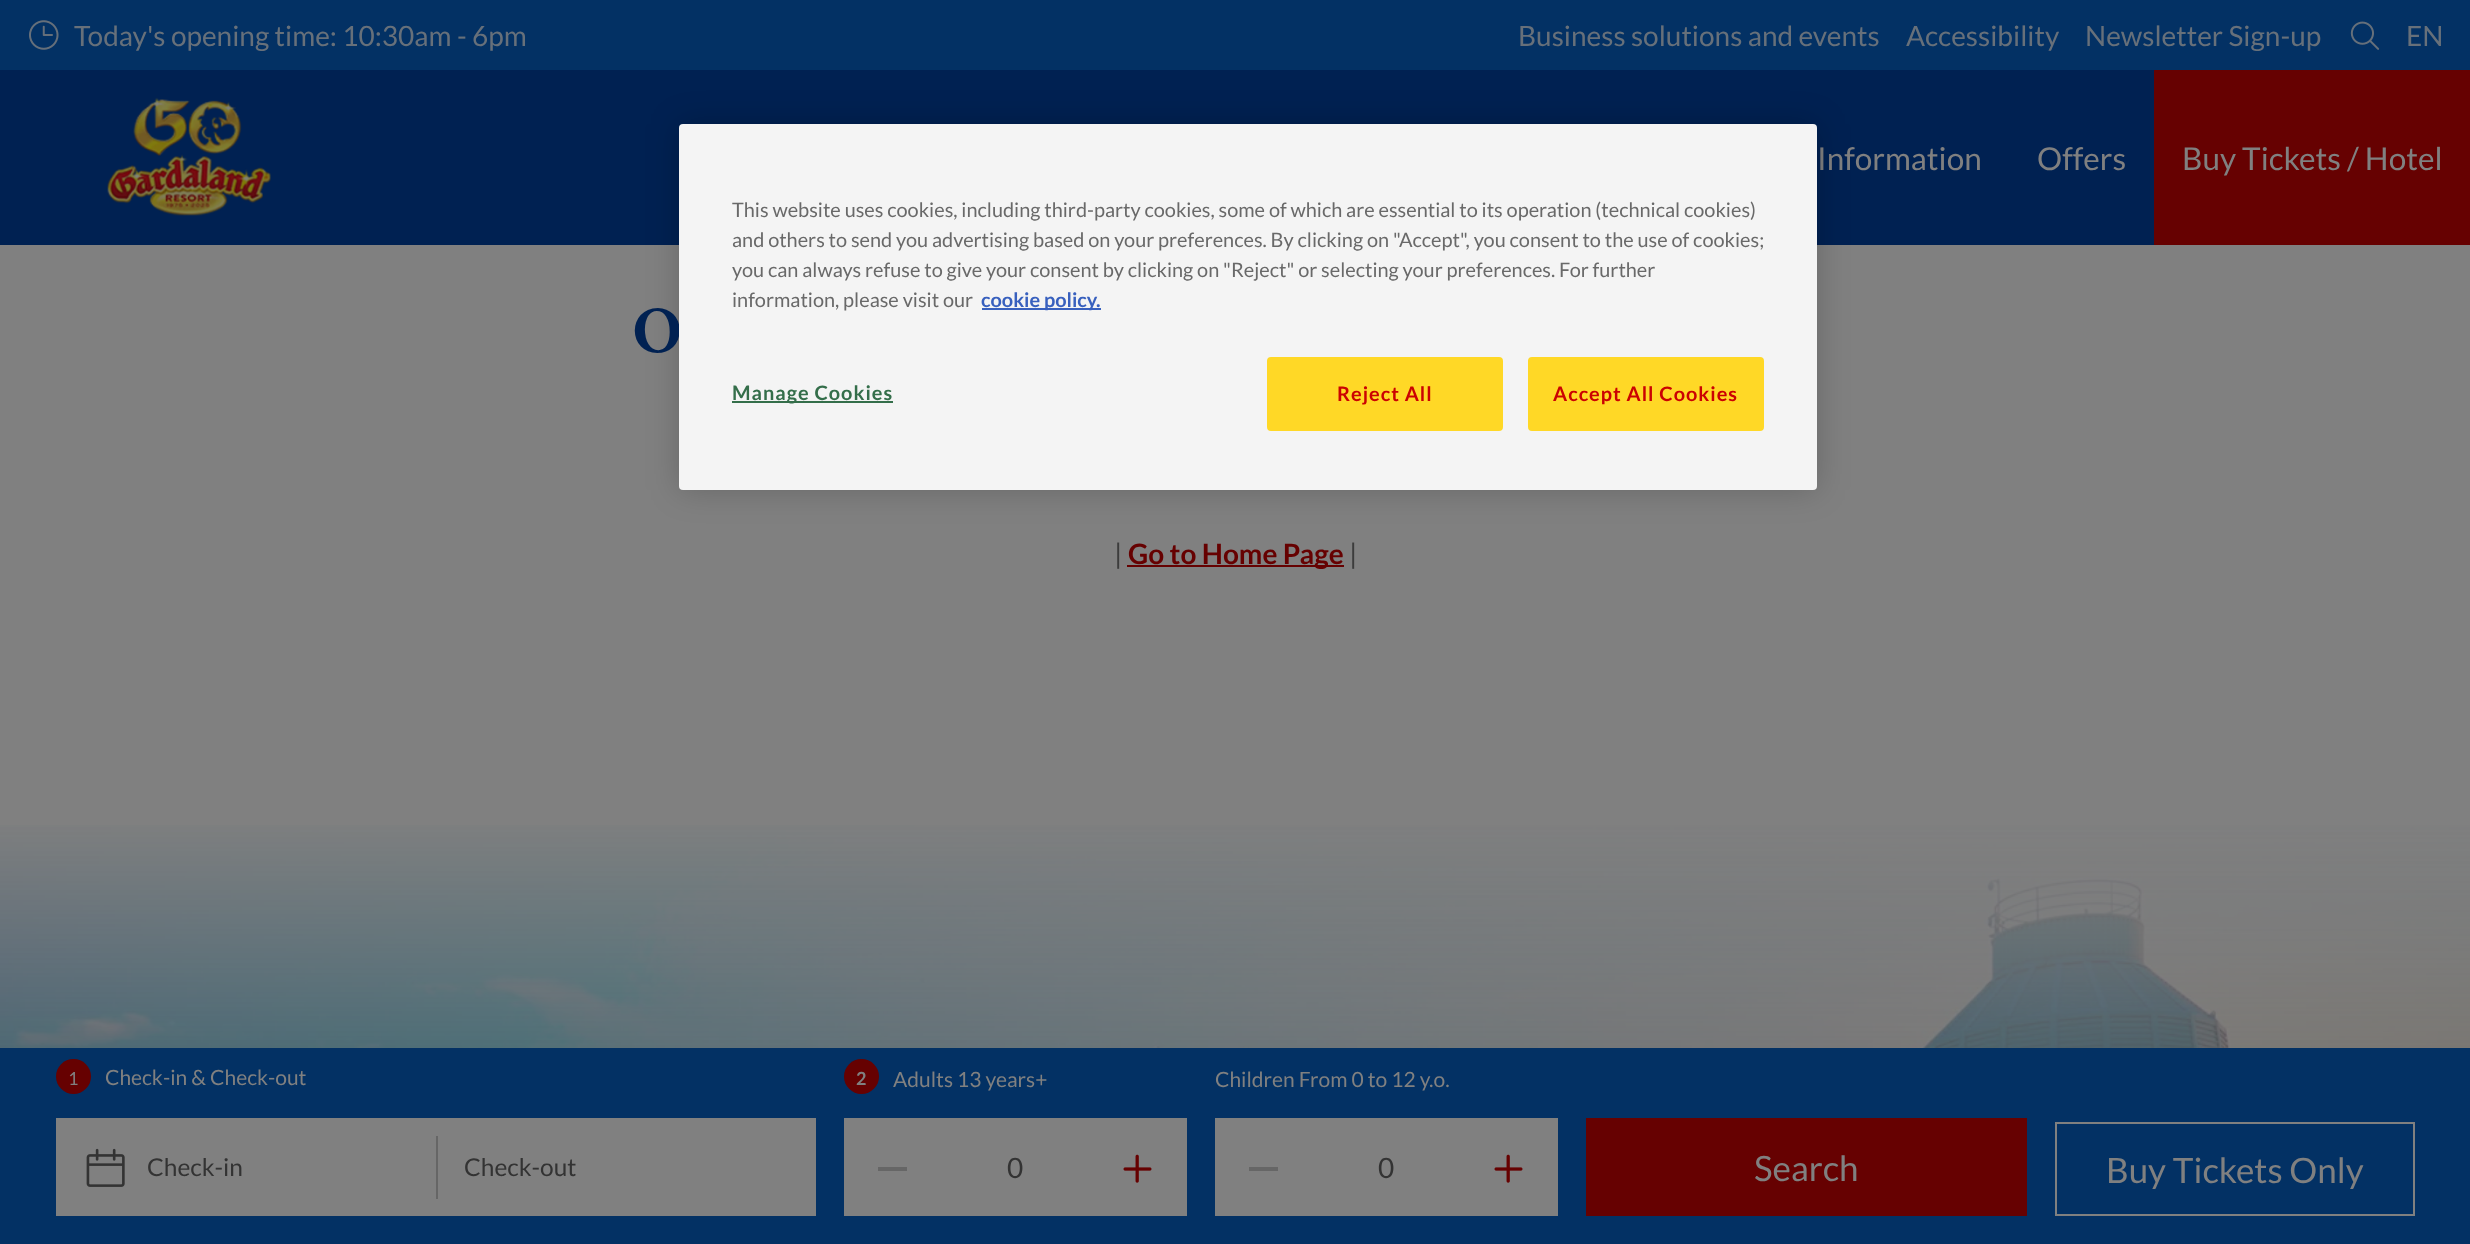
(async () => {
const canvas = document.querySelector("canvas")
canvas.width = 2470
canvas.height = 1244
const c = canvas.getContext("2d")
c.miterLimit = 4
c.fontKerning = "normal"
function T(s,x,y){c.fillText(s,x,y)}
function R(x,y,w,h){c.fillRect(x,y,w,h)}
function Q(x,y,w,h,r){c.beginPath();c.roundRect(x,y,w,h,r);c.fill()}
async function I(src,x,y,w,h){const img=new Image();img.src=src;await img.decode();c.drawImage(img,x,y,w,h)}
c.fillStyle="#808080"
R(0,0,2470,1244)
c.fillStyle="#033164"
R(0,0,2470,70)
await I("1.png",29,20,30,30)
c.font="28px Lato"
c.fillStyle="#67707a"
T("Today's opening time: 10:30am - 6pm",74,46)
T("Business solutions and events",1518,46)
T("Accessibility",1906,46)
T("Newsletter Sign-up",2085,46)
await I("2.png",2350,21,30,29)
T("EN",2406,46)
c.fillStyle="#002152"
R(0,70,2154,175)
await I("3.png",107,97,164,119)
c.font="31.5px Lato"
c.fillStyle="#808080"
T("Information",1817,170)
T("Offers",2037,170)
c.fillStyle="#660101"
R(2154,70,316,175)
c.fillStyle="#808080"
T("Buy Tickets / Hotel",2182,170)
c.fillStyle="#00000033"
c.filter="blur(16px)"
c.beginPath()
c.roundRect(679,124,1138,366,4)
c.fill()
c.filter="none"
c.font="bold 66px Minion"
c.fillStyle="#002152"
T("O",632,352)
c.fillStyle="#f4f4f4"
Q(679,124,1138,366,4)
c.font="19.92px Lato"
c.fillStyle="#696969"
T("This website uses cookies, including third-party cookies, some of which are essential to its operation (technical cookies)",732,217)
T("and others to send you advertising based on your preferences. By clicking on \"Accept\", you consent to the use of cookies;",732,247)
T("you can always refuse to give your consent by clicking on \"Reject\" or selecting your preferences. For further",732,277)
T("information, please visit our",732,307)
c.fillStyle="#3860be"
R(982,308,119,2)
c.font="bold 19.92px Lato"
T("cookie policy.",981,307)
c.fillStyle="#346e4a"
R(732,401,161,2)
c.letterSpacing="1px"
T("Manage Cookies",732,400)
c.fillStyle="#ffd826"
c.beginPath()
c.roundRect(1268,358,234,72,3)
c.fill()
c.strokeStyle="#ffd826"
c.lineWidth=2
c.stroke()
c.fillStyle="#cb0202"
T("Reject All",1337,401)
c.fillStyle="#ffd826"
c.beginPath()
c.roundRect(1529,358,234,72,3)
c.fill()
c.stroke()
c.fillStyle="#cb0202"
T("Accept All Cookies",1553,401)
c.letterSpacing="0px"
c.font="28px Lato"
c.fillStyle="#3c3c3c"
T("|",1114,564)
c.fillStyle="#660101"
R(1127,565,217,2)
c.font="bold 28px Lato"
T("Go to Home Page",1128,564)
c.font="28px Lato"
c.fillStyle="#3c3c3c"
T("|",1349,564)
await I("4.png",0,825,2470,223)
c.fillStyle="#033164"
R(0,1048,2470,196)
c.fillStyle="#660101"
c.beginPath()
c.arc(73.5,1076.5,17.5,0,7)
c.fill()
c.font="18px Lato"
c.fillStyle="#808080"
T("1",68,1085)
c.font="21px Lato"
T("Check-in & Check-out",105,1085)
R(56,1118,760,98)
await I("5.png",86,1148,39,39)
c.font="24.5px Lato"
c.fillStyle="#333"
T("Check-in",147,1176)
c.fillStyle="#666"
R(436,1136,2,63)
c.fillStyle="#333"
T("Check-out",464,1176)
c.fillStyle="#660101"
c.beginPath()
c.arc(861.5,1076.5,17.5,0,7)
c.fill()
c.font="bold 18px Lato"
c.fillStyle="#808080"
T("2",856,1085)
c.font="21px Lato"
T("Adults 13 years+",893,1087)
R(844,1118,343,98)
c.fillStyle="#666"
R(878,1167,29,4)
c.font="28px Lato"
c.fillStyle="#333"
T("0",1007,1178)
await I("6.png",1123,1154,29,29)
c.font="21px Lato"
c.fillStyle="#808080"
T("Children From 0 to 12 y.o.",1215,1087)
R(1215,1118,343,98)
c.fillStyle="#666"
R(1249,1167,29,4)
c.font="28px Lato"
c.fillStyle="#333"
T("0",1378,1178)
await I("6.png",1494,1154,29,29)
c.fillStyle="#660101"
R(1586,1118,441,98)
c.font="35px Lato"
c.fillStyle="#808080"
T("Search",1754,1181)
c.strokeStyle="#808080"
c.strokeRect(2056,1123,358,92)
T("Buy Tickets Only",2106,1183)
})()
